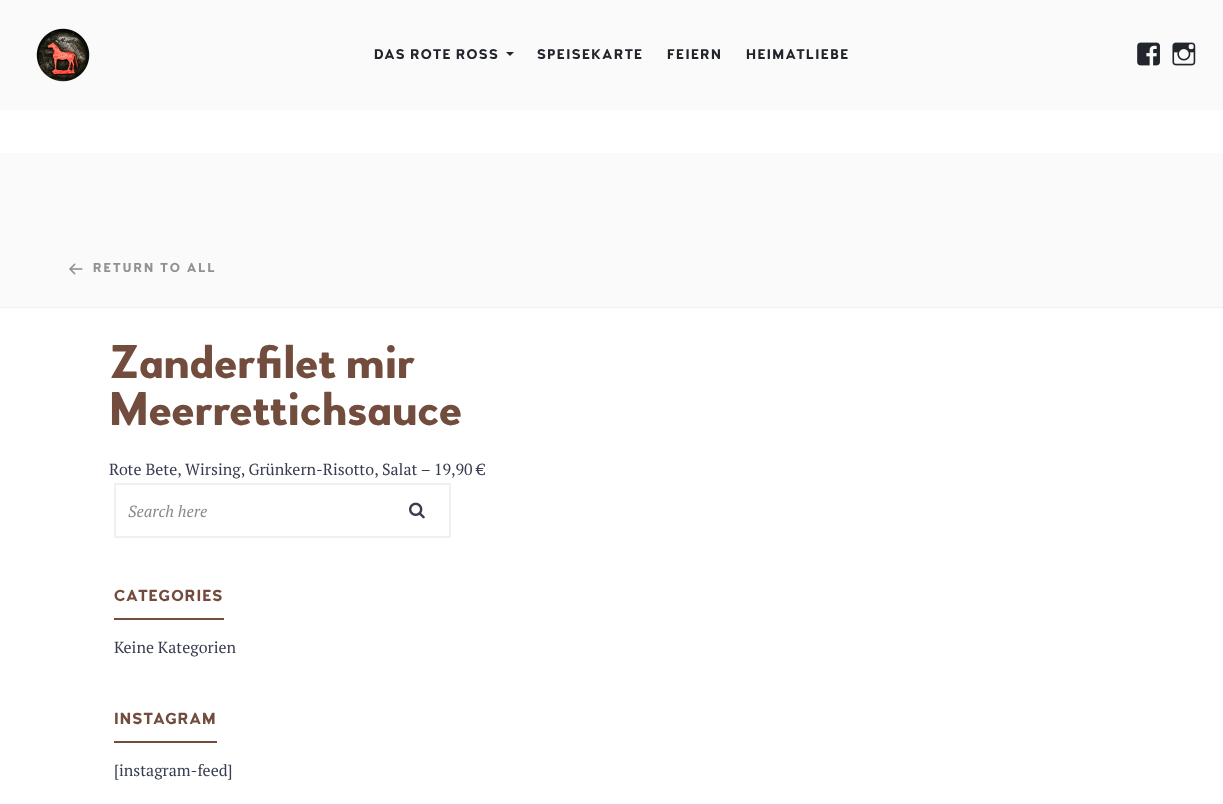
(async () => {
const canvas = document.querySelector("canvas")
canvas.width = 1223
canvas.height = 804
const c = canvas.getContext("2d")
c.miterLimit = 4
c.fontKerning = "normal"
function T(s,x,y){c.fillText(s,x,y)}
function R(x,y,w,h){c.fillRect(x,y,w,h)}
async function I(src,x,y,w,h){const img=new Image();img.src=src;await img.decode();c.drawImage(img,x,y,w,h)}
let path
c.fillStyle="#fafafa"
R(0,0,1223,804)
await I("1.png",36,28,54,54)
c.letterSpacing="1.4px"
c.font="bold 14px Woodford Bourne"
c.fillStyle="#23252d"
T("DAS ROTE ROSS",374,59)
path = new Path2D("M506 52h8l-4 4z")
c.fill(path)
T("SPEISEKARTE",537,59)
T("FEIERN",667,59)
T("HEIMATLIEBE",746,59)
await I("2.png",1137,42,23,24)
await I("3.png",1172,42,24,24)
c.fillStyle="#fff"
R(0,110,1223,694)
c.fillStyle="#fafafa"
R(0,153,1223,154)
await I("4.png",69,263,14,12)
c.letterSpacing="2px"
c.font="bold 13px Woodford Bourne"
c.fillStyle="#919191"
T("RETURN TO ALL",93,272)
c.letterSpacing="0px"
c.font="bold 47px Woodford Bourne"
c.fillStyle="#724d3d"
T("Zanderfilet mir",109,378)
T("Meerrettichsauce",109,425)
c.fillStyle="#eef1f2"
R(0,307,1223,1)
c.font="16px PT Serif"
c.fillStyle="#383c50"
T("Rote Bete, Wirsing, Grünkern-Risotto, Salat – 19,90 €",109,475)
c.strokeStyle="#eef1f2"
c.lineWidth=2
c.strokeRect(115,484,335,53)
c.font="italic 16px PT Serif"
c.fillStyle="#898989"
T("Search here",128,517)
await I("5.png",409,502,16,17)
c.fillStyle="#724d3d"
R(114,618,110,2)
c.letterSpacing="1.1px"
c.font="bold 16px Woodford Bourne"
T("CATEGORIES",114,601)
c.letterSpacing="0px"
c.font="16px PT Serif"
c.fillStyle="#383c50"
T("Keine Kategorien",114,653)
c.fillStyle="#724d3d"
R(114,741,103,2)
c.letterSpacing="1.1px"
c.font="bold 16px Woodford Bourne"
T("INSTAGRAM",114,724)
c.letterSpacing="0px"
c.font="16px PT Serif"
c.fillStyle="#383c50"
T("[instagram-feed]",114,776)
})()
